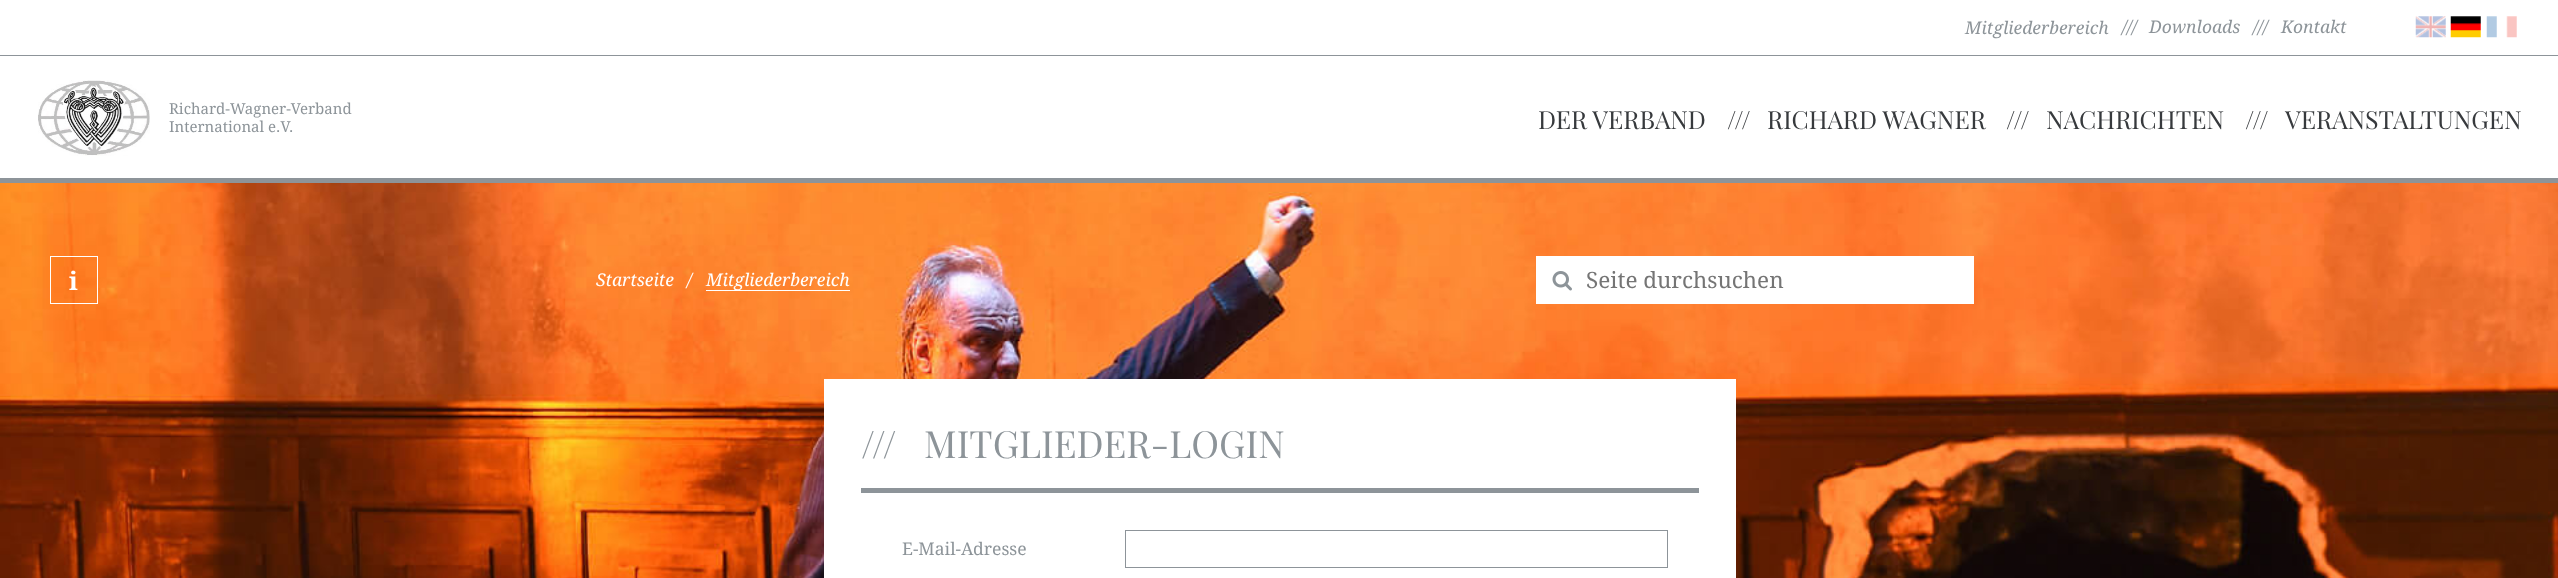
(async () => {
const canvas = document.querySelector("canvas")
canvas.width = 2558
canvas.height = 578
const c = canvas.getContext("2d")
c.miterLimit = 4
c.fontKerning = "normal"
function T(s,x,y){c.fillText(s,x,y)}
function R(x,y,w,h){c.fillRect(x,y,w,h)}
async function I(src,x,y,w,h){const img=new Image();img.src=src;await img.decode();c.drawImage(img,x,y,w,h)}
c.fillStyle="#fff"
R(0,0,2558,578)
c.fillStyle="#8d9499"
R(0,55,2558,1)
c.font="italic 17.5px Droid Serif"
T("Mitgliederbereich",1965,34)
T("///",2122,33)
T("Downloads",2149,33)
T("///",2253,33)
T("Kontakt",2281,33)
await I("1.png",2415,16,31,22)
await I("2.png",2450,16,31,22)
await I("3.png",2486,16,31,22)
R(0,178,2558,5)
await I("4.png",38,80,112,76)
c.font="15px Droid Serif"
T("Richard-Wagner-Verband",169,114)
T("International e.V.",169,132)
c.font="25px Playfair Display"
c.fillStyle="#373a3d"
T("DER VERBAND",1538,129)
T("///",1727,129)
T("RICHARD WAGNER",1767,129)
T("///",2006,129)
T("NACHRICHTEN",2046,129)
T("///",2245,129)
T("VERANSTALTUNGEN",2285,129)
await I("5.png",0,183,2558,395)
c.strokeStyle="#fff"
c.strokeRect(50.5,256.5,47,47)
c.font="bold 25px Droid Serif"
c.fillStyle="#fff"
T("i",69,290)
c.font="italic 17.5px Droid Serif"
T("Startseite",596,286)
T("/",687,286)
R(706,290,144,1)
T("Mitgliederbereich",706,286)
R(1536,256,438,48)
await I("6.png",1552,271,20,20)
c.font="22.5px Droid Serif"
c.fillStyle="#757575"
T("Seite durchsuchen",1586,288)
c.fillStyle="#fff"
R(824,379,912,199)
c.fillStyle="#8d9499"
R(861,488,838,5)
c.font="37.5px Playfair Display"
T("///",861,458)
T("MITGLIEDER-LOGIN",924,458)
c.font="17.5px Droid Serif"
T("E-Mail-Adresse",902,555)
c.strokeStyle="#8d9499"
c.strokeRect(1125.5,530.5,542,37)
})()
